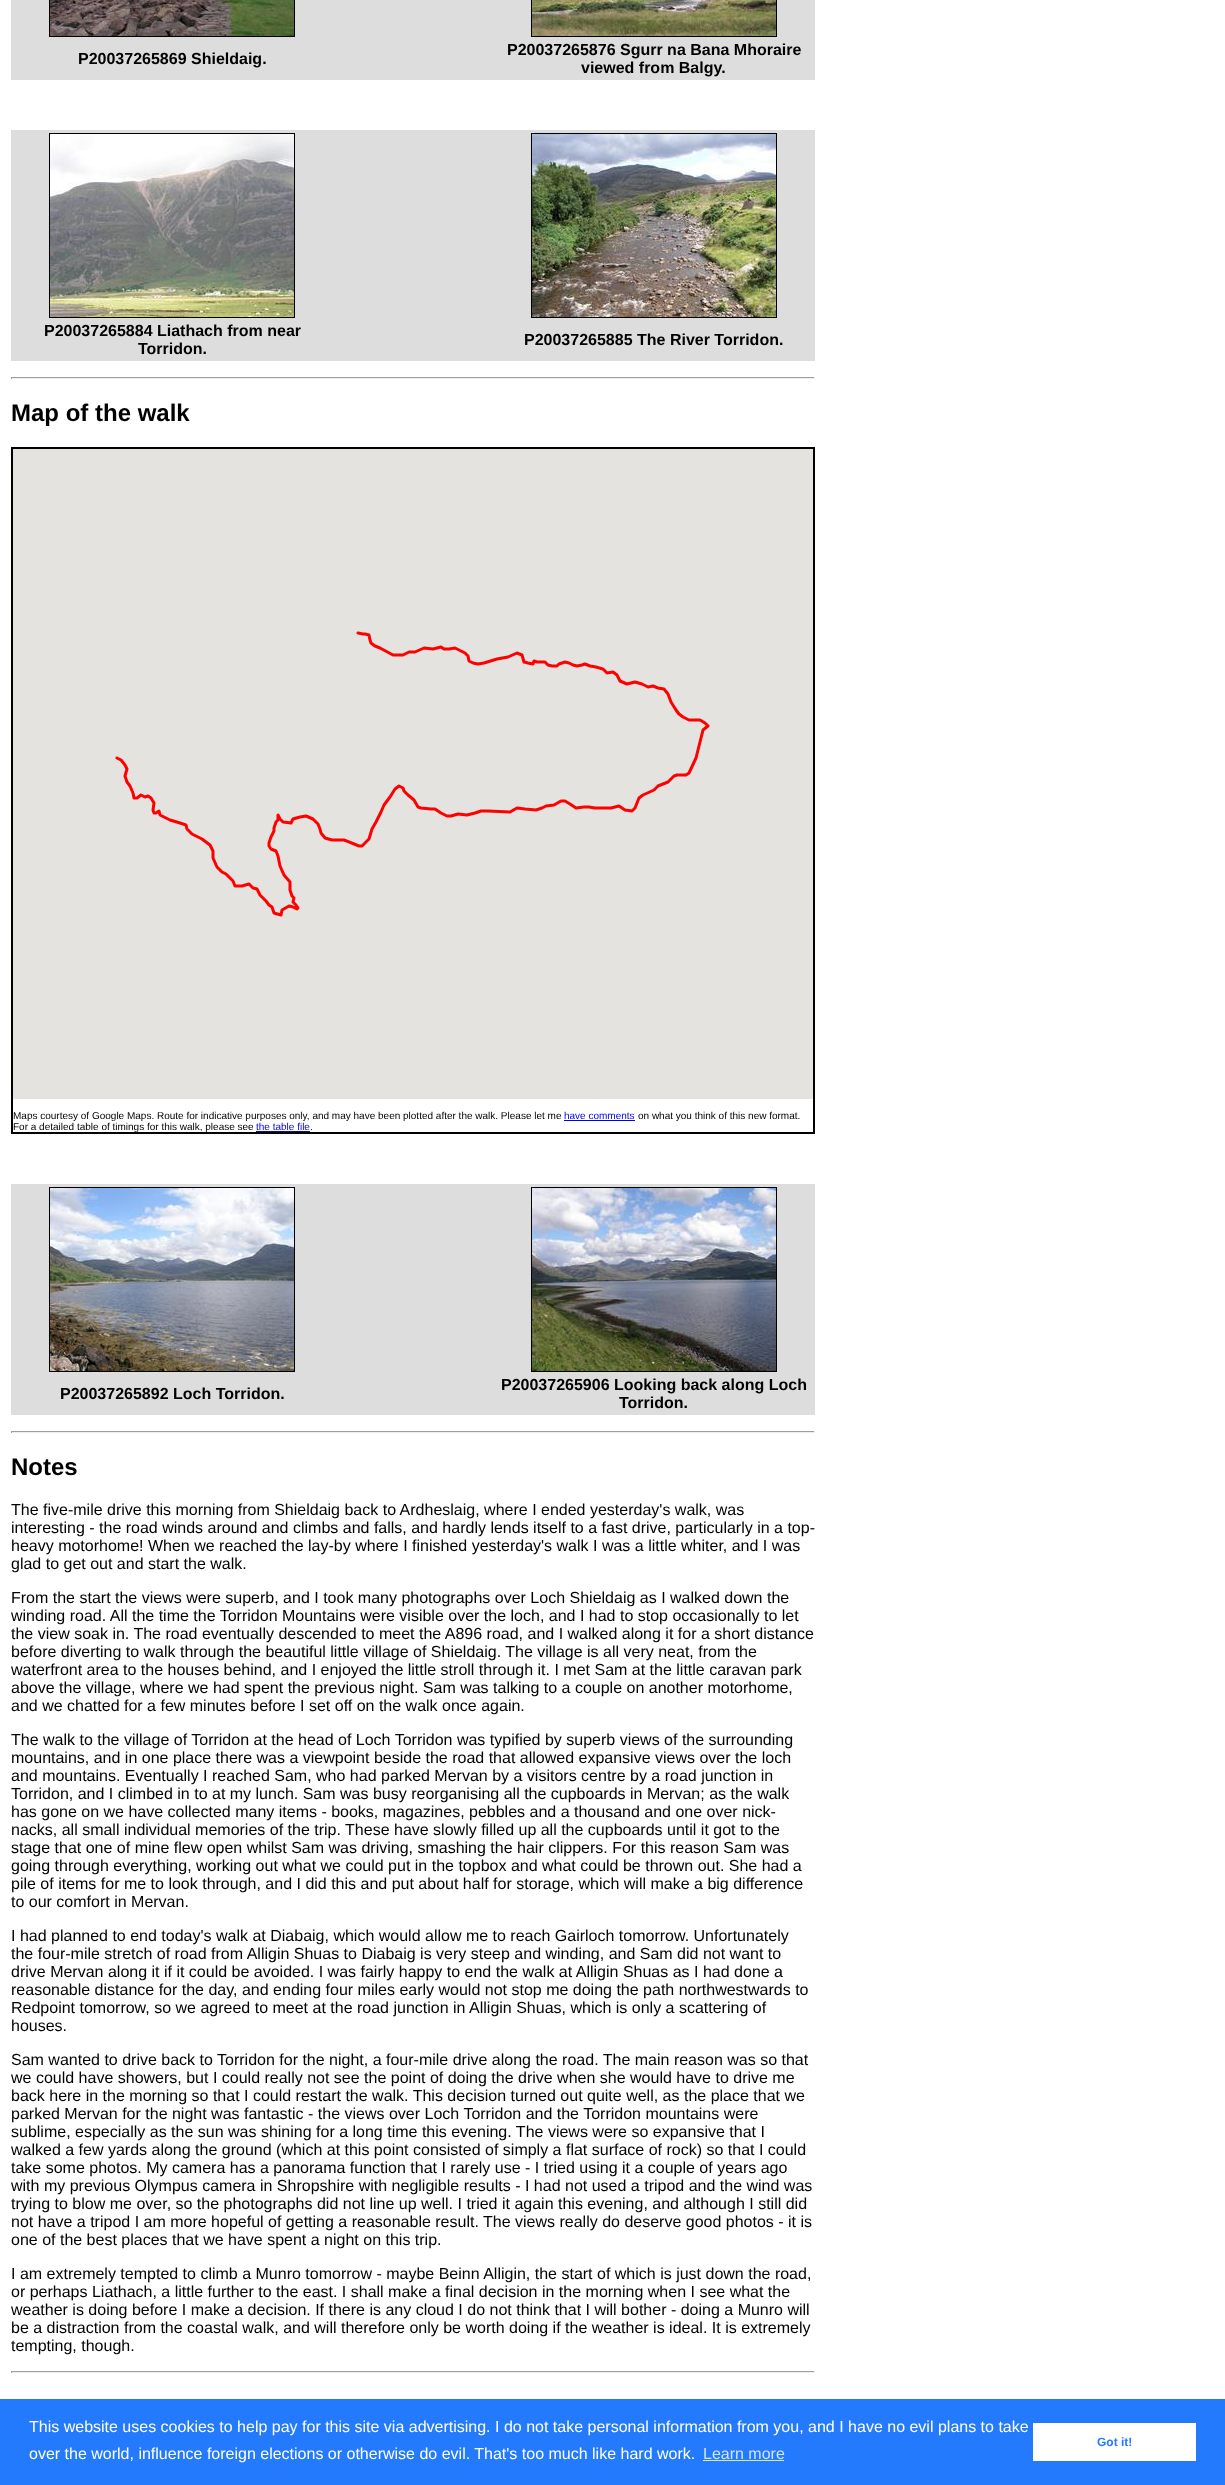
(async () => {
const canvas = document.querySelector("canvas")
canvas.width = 1225
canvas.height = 2485
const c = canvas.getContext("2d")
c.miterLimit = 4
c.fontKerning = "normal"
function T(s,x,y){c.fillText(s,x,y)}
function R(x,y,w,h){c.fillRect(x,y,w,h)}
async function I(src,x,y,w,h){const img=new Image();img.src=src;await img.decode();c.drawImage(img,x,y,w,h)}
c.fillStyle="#fff"
R(0,0,1225,2485)
c.fillStyle="#ddd"
R(11,0,804,80)
c.strokeStyle="#000"
c.strokeRect(49.5,-.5,245,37)
await I("1.png",50,0,244,36)
c.strokeRect(531.5,-.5,245,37)
await I("2.png",532,0,244,36)
c.font="bold 16px Liberation Sans"
c.fillStyle="#000"
T("P20037265869 Shieldaig.",78,64)
T("P20037265876 Sgurr na Bana Mhoraire",507,55)
T("viewed from Balgy.",581,73)
c.fillStyle="#ddd"
R(11,130,804,231)
c.strokeRect(49.5,133.5,245,184)
await I("3.png",50,134,244,183)
c.strokeRect(531.5,133.5,245,184)
await I("4.png",532,134,244,183)
c.fillStyle="#000"
T("P20037265884 Liathach from near",44,336)
T("Torridon.",138,354)
T("P20037265885 The River Torridon.",524,345)
c.fillStyle="#9f9f9f"
R(11,377,804,1)
c.fillStyle="#eee"
R(814,377,1,2)
R(11,378,804,1)
c.fillStyle="#9f9f9f"
R(11,377,1,2)
c.font="bold 24px Liberation Sans"
c.fillStyle="#000"
T("Map of the walk",11,421)
c.lineWidth=2
c.strokeRect(12,448,802,685)
c.fillStyle="#e5e3df"
R(13,449,800,650)
await I("5.png",115,756,232,116)
await I("6.png",347,631,256,217)
await I("7.png",603,667,107,146)
await I("8.png",220,872,80,45)
c.font="10px Liberation Sans"
c.fillStyle="#000"
T("Maps courtesy of Google Maps. Route for indicative purposes only, and may have been plotted after the walk. Please let me",13,1119)
c.fillStyle="#00e"
T("have comments",564,1119)
R(564,1120,71,1)
c.fillStyle="#000"
T("on what you think of this new format.",638,1119)
T("For a detailed table of timings for this walk, please see",13,1130)
c.fillStyle="#00e"
T("the table file",256,1130)
R(256,1131,54,1)
c.fillStyle="#000"
T(".",310,1130)
c.fillStyle="#ddd"
R(11,1184,804,231)
c.lineWidth=1
c.strokeRect(49.5,1187.5,245,184)
await I("9.png",50,1188,244,183)
c.strokeRect(531.5,1187.5,245,184)
await I("10.png",532,1188,244,183)
c.font="bold 16px Liberation Sans"
c.fillStyle="#000"
T("P20037265892 Loch Torridon.",60,1399)
T("P20037265906 Looking back along Loch",501,1390)
T("Torridon.",619,1408)
c.fillStyle="#9f9f9f"
R(11,1431,804,1)
c.fillStyle="#eee"
R(814,1431,1,2)
R(11,1432,804,1)
c.fillStyle="#9f9f9f"
R(11,1431,1,2)
c.font="bold 24px Liberation Sans"
c.fillStyle="#000"
T("Notes",11,1475)
c.font="16px Liberation Sans"
T("The five-mile drive this morning from Shieldaig back to Ardheslaig, where I ended yesterday's walk, was",11,1515)
T("interesting - the road winds around and climbs and falls, and hardly lends itself to a fast drive, particularly in a top-",11,1533)
T("heavy motorhome! When we reached the lay-by where I finished yesterday's walk I was a little whiter, and I was",11,1551)
T("glad to get out and start the walk.",11,1569)
T("From the start the views were superb, and I took many photographs over Loch Shieldaig as I walked down the",11,1603)
T("winding road. All the time the Torridon Mountains were visible over the loch, and I had to stop occasionally to let",11,1621)
T("the view soak in. The road eventually descended to meet the A896 road, and I walked along it for a short distance",11,1639)
T("before diverting to walk through the beautiful little village of Shieldaig. The village is all very neat, from the",11,1657)
T("waterfront area to the houses behind, and I enjoyed the little stroll through it. I met Sam at the little caravan park",11,1675)
T("above the village, where we had spent the previous night. Sam was talking to a couple on another motorhome,",11,1693)
T("and we chatted for a few minutes before I set off on the walk once again.",11,1711)
T("The walk to the village of Torridon at the head of Loch Torridon was typified by superb views of the surrounding",11,1745)
T("mountains, and in one place there was a viewpoint beside the road that allowed expansive views over the loch",11,1763)
T("and mountains. Eventually I reached Sam, who had parked Mervan by a visitors centre by a road junction in",11,1781)
T("Torridon, and I climbed in to at my lunch. Sam was busy reorganising all the cupboards in Mervan; as the walk",11,1799)
T("has gone on we have collected many items - books, magazines, pebbles and a thousand and one over nick-",11,1817)
T("nacks, all small individual memories of the trip. These have slowly filled up all the cupboards until it got to the",11,1835)
T("stage that one of mine flew open whilst Sam was driving, smashing the hair clippers. For this reason Sam was",11,1853)
T("going through everything, working out what we could put in the topbox and what could be thrown out. She had a",11,1871)
T("pile of items for me to look through, and I did this and put about half for storage, which will make a big difference",11,1889)
T("to our comfort in Mervan.",11,1907)
T("I had planned to end today's walk at Diabaig, which would allow me to reach Gairloch tomorrow. Unfortunately",11,1941)
T("the four-mile stretch of road from Alligin Shuas to Diabaig is very steep and winding, and Sam did not want to",11,1959)
T("drive Mervan along it if it could be avoided. I was fairly happy to end the walk at Alligin Shuas as I had done a",11,1977)
T("reasonable distance for the day, and ending four miles early would not stop me doing the path northwestwards to",11,1995)
T("Redpoint tomorrow, so we agreed to meet at the road junction in Alligin Shuas, which is only a scattering of",11,2013)
T("houses.",11,2031)
T("Sam wanted to drive back to Torridon for the night, a four-mile drive along the road. The main reason was so that",11,2065)
T("we could have showers, but I could really not see the point of doing the drive when she would have to drive me",11,2083)
T("back here in the morning so that I could restart the walk. This decision turned out quite well, as the place that we",11,2101)
T("parked Mervan for the night was fantastic - the views over Loch Torridon and the Torridon mountains were",11,2119)
T("sublime, especially as the sun was shining for a long time this evening. The views were so expansive that I",11,2137)
T("walked a few yards along the ground (which at this point consisted of simply a flat surface of rock) so that I could",11,2155)
T("take some photos. My camera has a panorama function that I rarely use - I tried using it a couple of years ago",11,2173)
T("with my previous Olympus camera in Shropshire with negligible results - I had not used a tripod and the wind was",11,2191)
T("trying to blow me over, so the photographs did not line up well. I tried it again this evening, and although I still did",11,2209)
T("not have a tripod I am more hopeful of getting a reasonable result. The views really do deserve good photos - it is",11,2227)
T("one of the best places that we have spent a night on this trip.",11,2245)
T("I am extremely tempted to climb a Munro tomorrow - maybe Beinn Alligin, the start of which is just down the road,",11,2279)
T("or perhaps Liathach, a little further to the east. I shall make a final decision in the morning when I see what the",11,2297)
T("weather is doing before I make a decision. If there is any cloud I do not think that I will bother - doing a Munro will",11,2315)
T("be a distraction from the coastal walk, and will therefore only be worth doing if the weather is ideal. It is extremely",11,2333)
T("tempting, though.",11,2351)
c.fillStyle="#9f9f9f"
R(11,2371,804,1)
c.fillStyle="#eee"
R(814,2371,1,2)
R(11,2372,804,1)
c.fillStyle="#9f9f9f"
R(11,2371,1,2)
c.fillStyle="#237afc"
R(0,2399,1225,86)
c.fillStyle="#fff"
T("This website uses cookies to help pay for this site via advertising. I do not take personal information from you, and I have no evil plans to take",29,2432)
T("over the world, influence foreign elections or otherwise do evil. That's too much like hard work.",29,2459)
c.fillStyle="#d3e4fe"
T("Learn more",703,2459)
R(703,2460,81,1)
c.fillStyle="#fff"
R(1033,2423,163,38)
c.font="bold 12px Liberation Sans"
c.fillStyle="#237afc"
T("Got it!",1097,2446)
})()
